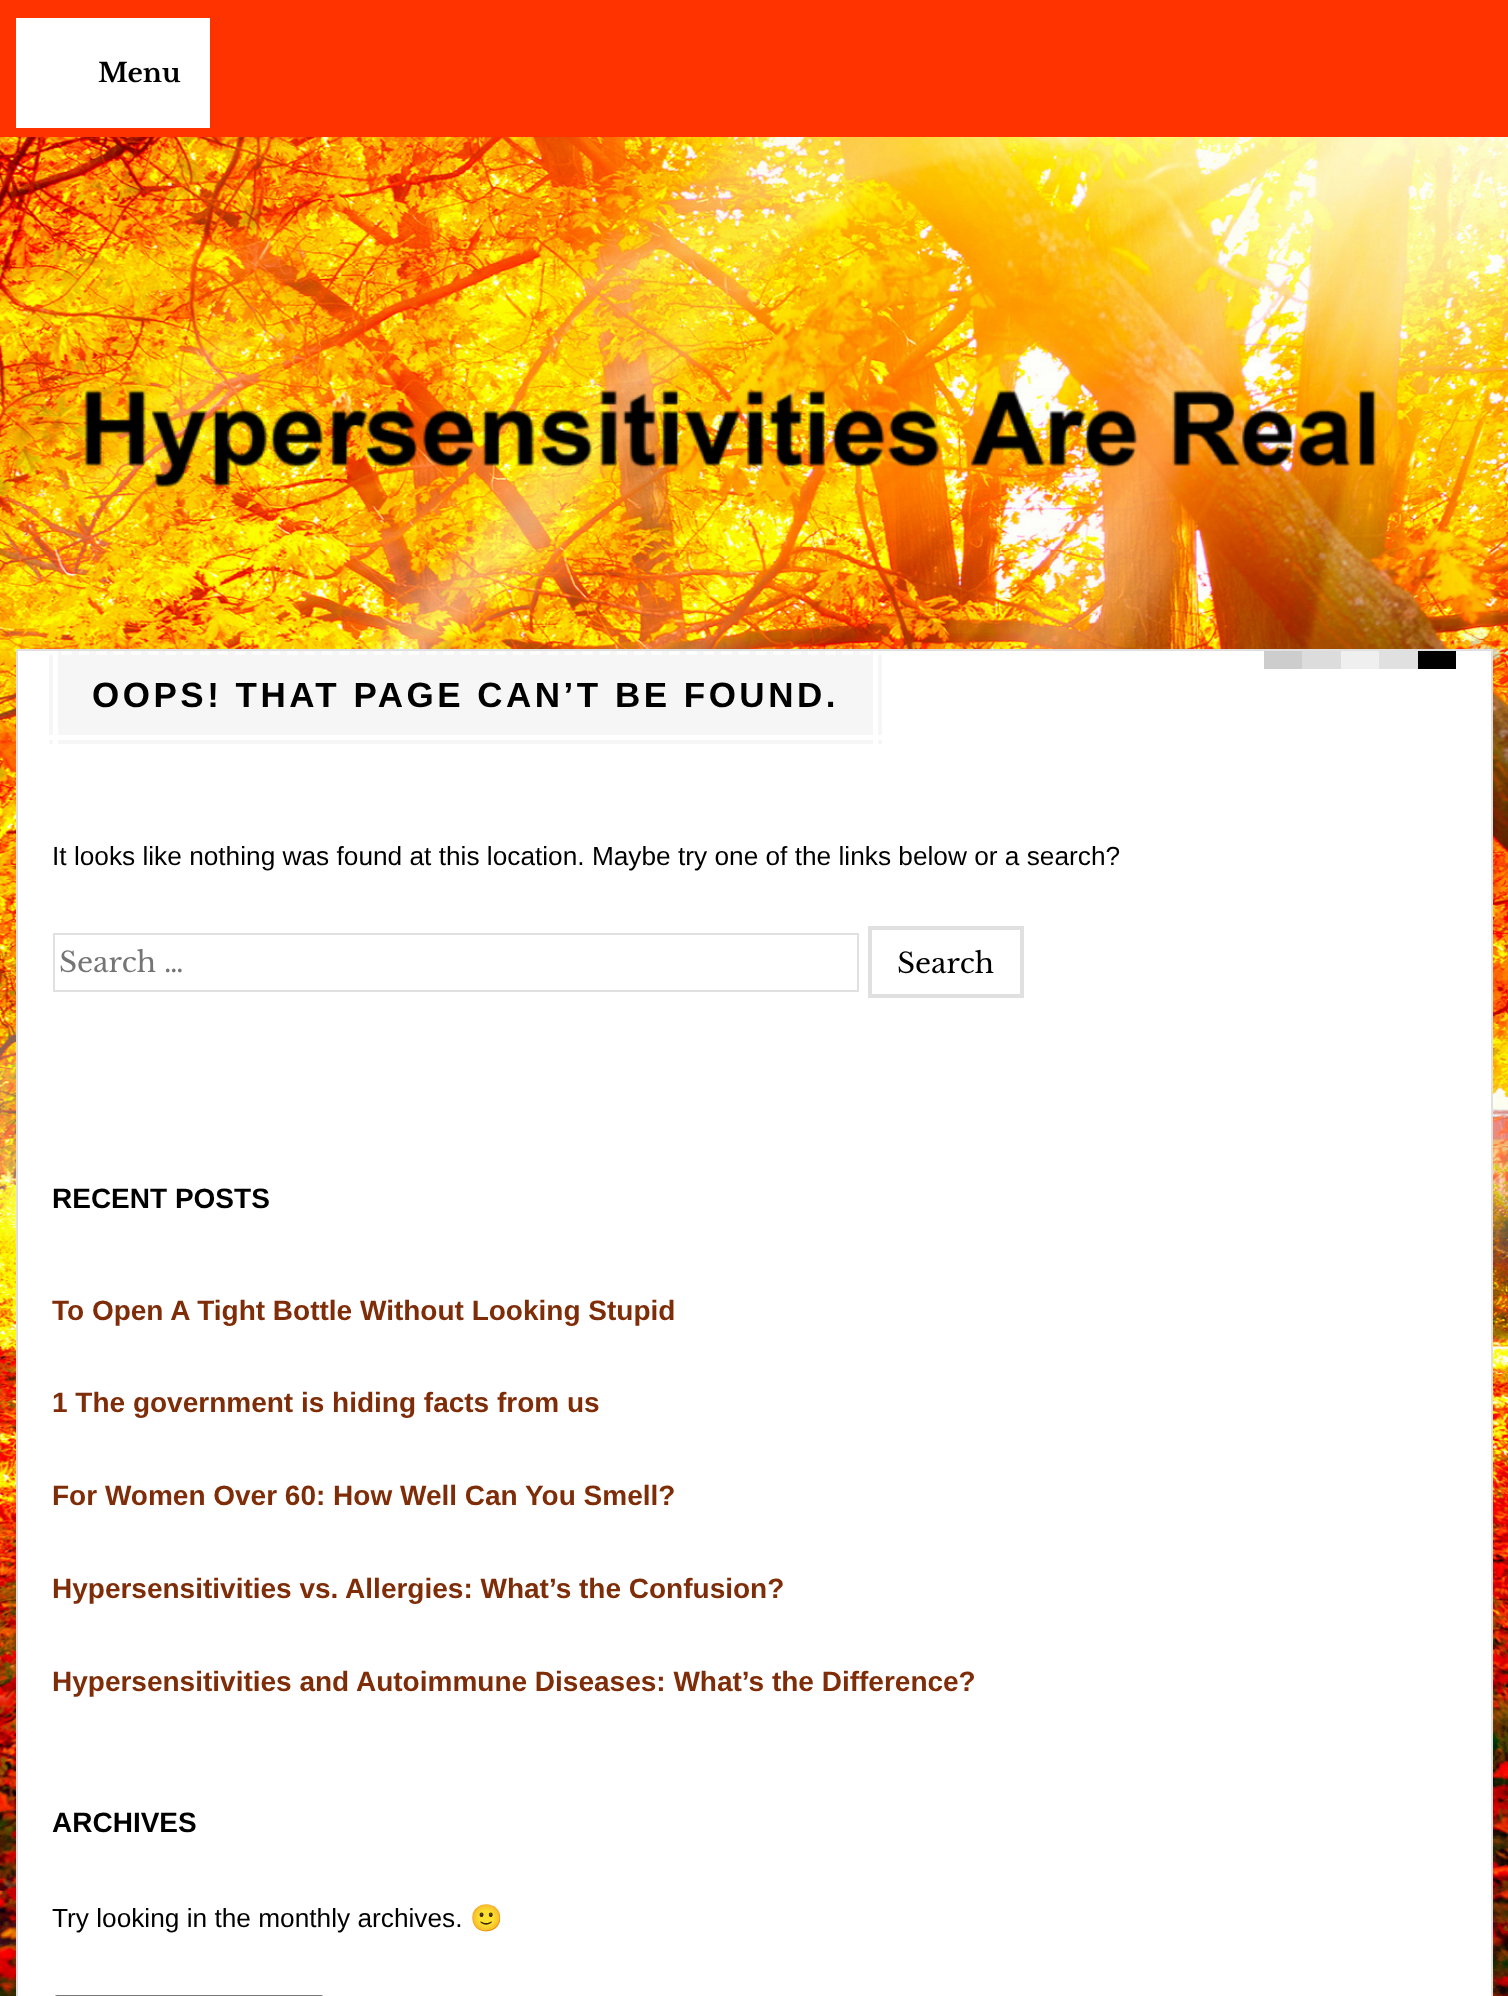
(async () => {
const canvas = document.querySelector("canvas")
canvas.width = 1508
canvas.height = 1996
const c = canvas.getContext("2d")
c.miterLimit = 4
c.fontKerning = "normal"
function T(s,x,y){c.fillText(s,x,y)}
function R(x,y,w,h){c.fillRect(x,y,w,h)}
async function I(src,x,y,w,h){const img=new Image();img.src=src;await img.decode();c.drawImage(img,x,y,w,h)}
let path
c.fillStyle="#fff"
R(0,0,1508,1996)
await I("1.png",0,137,1508,1859)
c.fillStyle="#f30"
R(0,0,1508,137)
c.fillStyle="#fff"
R(16,18,194,110)
c.font="bold 26.25px Libre Baskerville"
c.fillStyle="#000"
T("Menu",98,82)
await I("2.png",84,390,1292,98)
c.fillStyle="#fff"
R(18,651,1473,1345)
c.fillStyle="#e0e0e0"
R(16,649,1477,2)
R(1491,649,2,1347)
R(16,649,2,1347)
c.fillStyle="#cdcdcd"
R(1264,651,38,18)
c.fillStyle="#dcdcdc"
R(1302,651,39,18)
c.fillStyle="#efefef"
R(1341,651,38,18)
c.fillStyle="#e0e0e0"
R(1379,651,39,18)
c.fillStyle="#000"
R(1418,651,38,18)
c.fillStyle="#f6f6f6"
R(49,651,833,93)
path = new Path2D("M44 653h843")
c.strokeStyle="#fff"
c.lineWidth=3.5
c.setLineDash([10.5,6.86])
c.stroke(path)
c.fillStyle="#fff"
R(873,651,5,98)
R(44,735,843,5)
R(53,651,5,98)
c.letterSpacing="3.5px"
c.font="bold 35px Liberation Sans"
c.fillStyle="#000"
T("OOPS! THAT PAGE CAN’T BE FOUND.",92,707)
c.letterSpacing="0px"
c.font="26.25px Liberation Sans"
T("It looks like nothing was found at this location. Maybe try one of the links below or a search?",52,865)
c.strokeStyle="#e0e0e0"
c.lineWidth=2
c.setLineDash([])
c.strokeRect(54,934,804,57)
c.font="28px Libre Baskerville"
c.fillStyle="#757575"
T("Search …",59,972)
c.lineWidth=4
c.strokeRect(870,928,152,68)
c.fillStyle="#000"
T("Search",897,973)
c.font="bold 28px Liberation Sans"
T("RECENT POSTS",52,1208)
c.fillStyle="#7f2d08"
T("To Open A Tight Bottle Without Looking Stupid",52,1320)
T("1 The government is hiding facts from us",52,1412)
T("For Women Over 60: How Well Can You Smell?",52,1505)
T("Hypersensitivities vs. Allergies: What’s the Confusion?",52,1598)
T("Hypersensitivities and Autoimmune Diseases: What’s the Difference?",52,1691)
c.fillStyle="#000"
T("ARCHIVES",52,1832)
c.font="26.25px Liberation Sans"
T("Try looking in the monthly archives.",52,1927)
c.font="26.25px Noto Color Emoji"
T("🙂",470,1927)
c.beginPath()
c.roundRect(55,1996,268,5,3)
c.strokeStyle="#767676"
c.lineWidth=2
c.stroke()
})()
